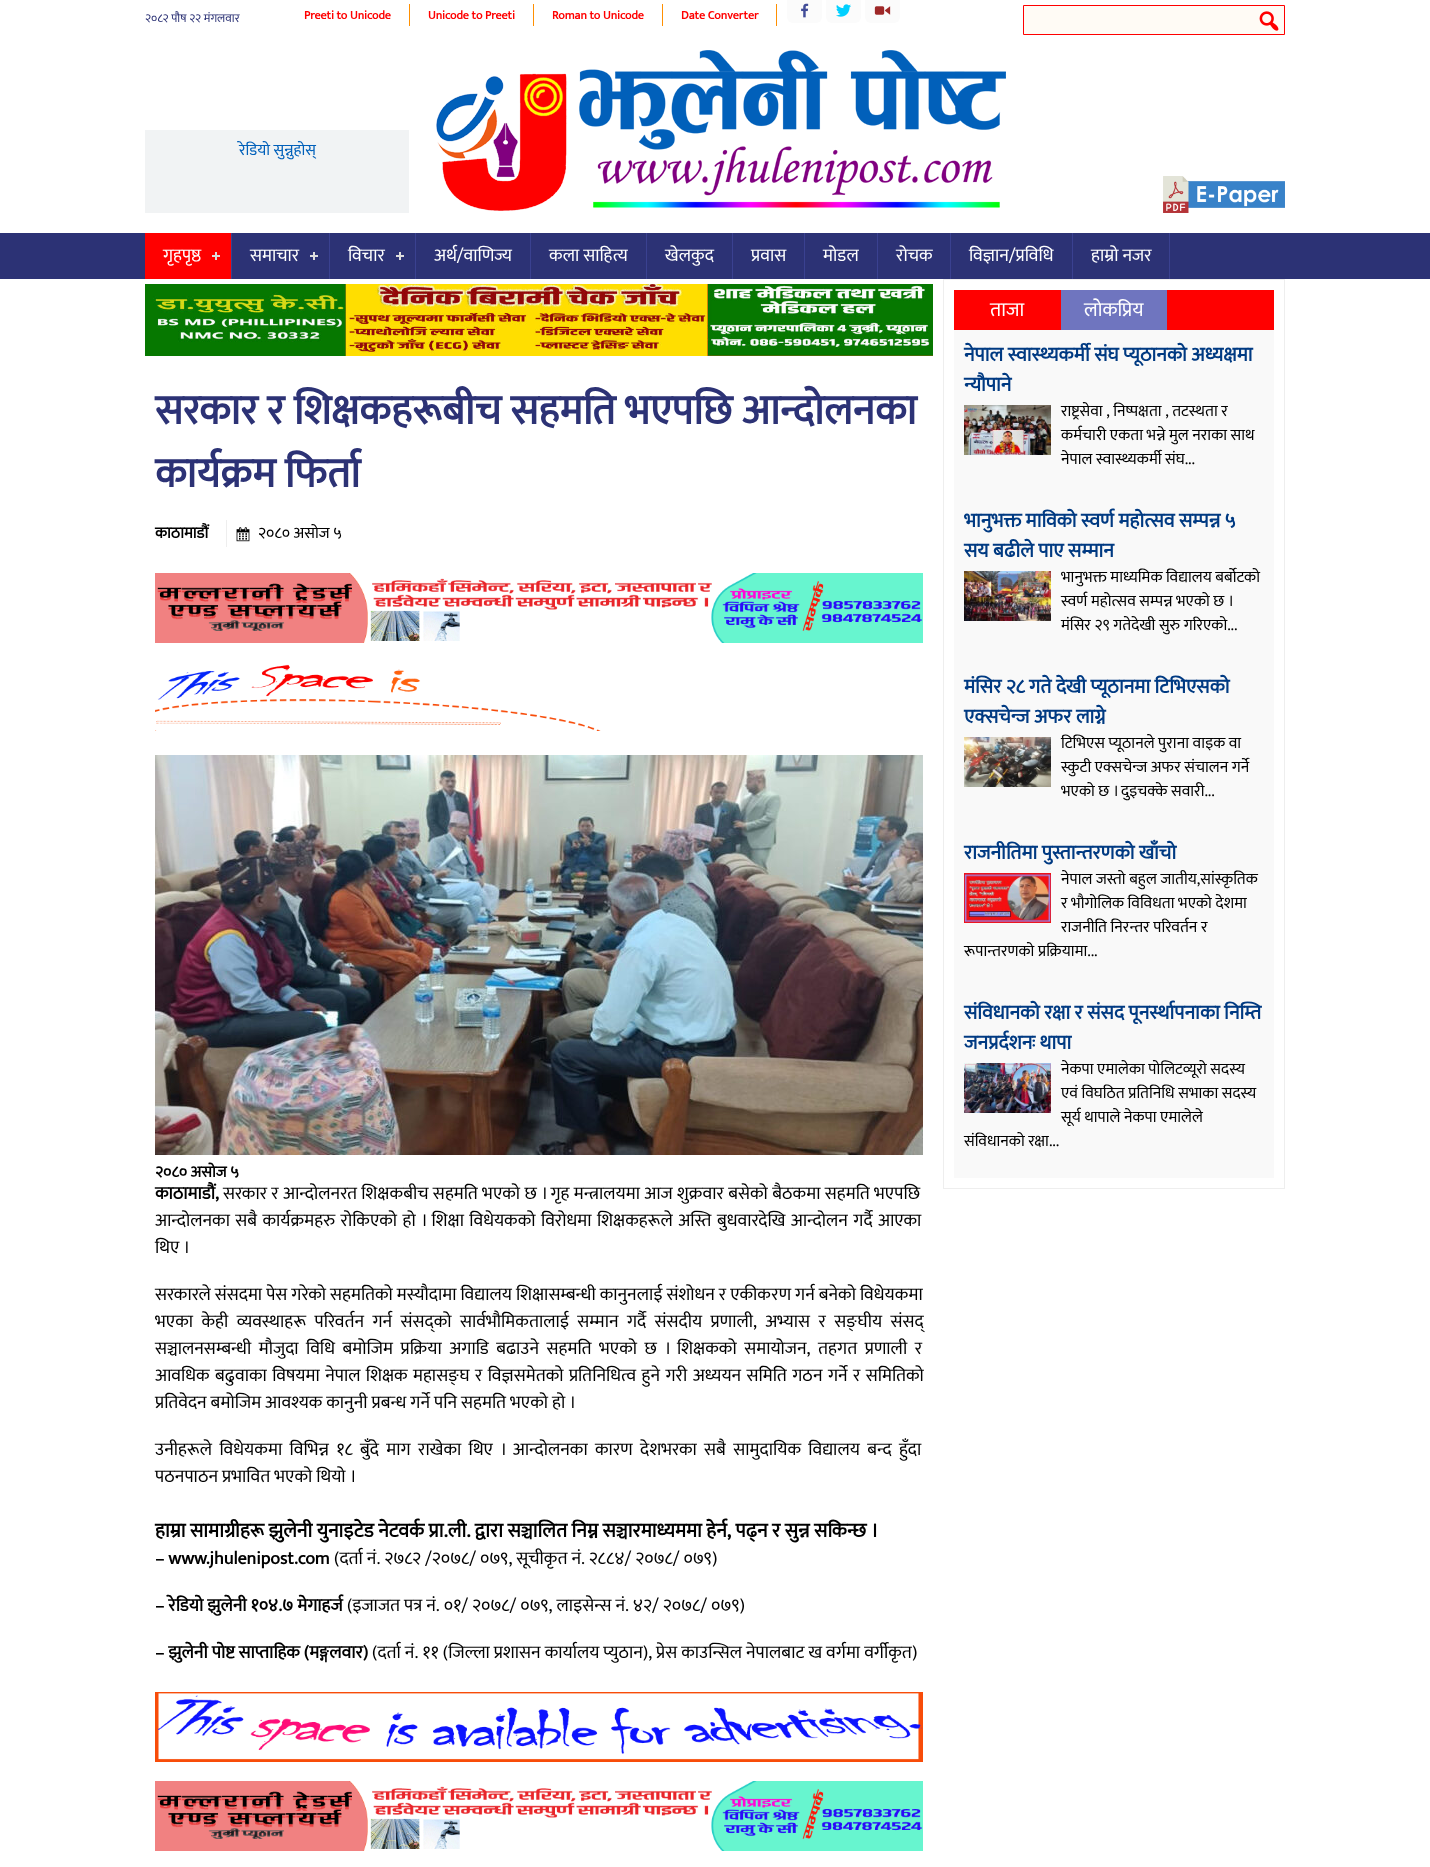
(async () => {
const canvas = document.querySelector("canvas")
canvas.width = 1430
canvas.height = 1867
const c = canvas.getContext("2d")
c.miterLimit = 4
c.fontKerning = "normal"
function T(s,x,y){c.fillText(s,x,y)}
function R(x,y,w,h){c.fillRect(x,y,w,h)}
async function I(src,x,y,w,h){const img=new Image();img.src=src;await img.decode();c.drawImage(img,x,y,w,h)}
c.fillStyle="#fff"
R(0,0,1430,1867)
await I("1.png",145,11,95,12)
c.fillStyle="#ff9002"
R(409,4,1,22)
c.font="bold 12px Mukta"
c.fillStyle="#f00"
T("Preeti to Unicode",304,19)
c.fillStyle="#ff9002"
R(533,4,1,22)
c.fillStyle="#f00"
T("Unicode to Preeti",428,19)
c.fillStyle="#ff9002"
R(662,4,1,22)
c.fillStyle="#f00"
T("Roman to Unicode",552,19)
c.fillStyle="#ff9002"
R(776,4,1,22)
c.fillStyle="#f00"
T("Date Converter",681,19)
c.fillStyle="#fbfbfb"
c.beginPath()
c.roundRect(787,0,35,23,[0,0,6,6])
c.fill()
await I("2.png",801,3,8,15)
c.beginPath()
c.roundRect(826,0,35,23,[0,0,6,6])
c.fill()
await I("3.png",836,4,15,13)
c.beginPath()
c.roundRect(865,0,35,23,[0,0,6,6])
c.fill()
await I("4.png",874,6,17,9)
c.fillStyle="#fffbf5"
c.beginPath()
c.rect(1023.5,5.5,261,29)
c.fill()
c.strokeStyle="#f00"
c.stroke()
await I("5.png",1259,11,20,20)
c.fillStyle="#f1f3f4"
R(145,130,264,83)
c.font="16px Mukta"
c.fillStyle="#0160ba"
T("रेडियो सुन्नुहोस्",239,155)
await I("6.png",436,50,570,161)
await I("7.png",1163,176,122,37)
c.fillStyle="#2c3275"
R(0,233,1430,46)
c.fillStyle="#f00"
R(145,233,86,46)
c.fillStyle="#3a4190"
R(231,233,1,46)
c.font="18px Mukta"
c.fillStyle="#fff"
T("गृहपृष्ठ",163,261)
c.fillStyle="#ddd"
R(215,252,2,8)
R(212,255,8,2)
c.fillStyle="#3a4190"
R(329,233,1,46)
c.fillStyle="#fff"
T("समाचार",250,261)
c.fillStyle="#ddd"
R(313,252,2,8)
R(310,255,8,2)
c.fillStyle="#3a4190"
R(415,233,1,46)
c.fillStyle="#fff"
T("विचार",348,261)
c.fillStyle="#ddd"
R(399,252,2,8)
R(396,255,8,2)
c.fillStyle="#3a4190"
R(530,233,1,46)
c.fillStyle="#fff"
T("अर्थ/वाणिज्य",434,261)
c.fillStyle="#3a4190"
R(646,233,1,46)
c.fillStyle="#fff"
T("कला साहित्य",549,261)
c.fillStyle="#3a4190"
R(732,233,1,46)
c.fillStyle="#fff"
T("खेलकुद",665,261)
c.fillStyle="#3a4190"
R(804,233,1,46)
c.fillStyle="#fff"
T("प्रवास",751,261)
c.fillStyle="#3a4190"
R(877,233,1,46)
c.fillStyle="#fff"
T("माेडल",823,261)
c.fillStyle="#3a4190"
R(950,233,1,46)
c.fillStyle="#fff"
T("रोचक",896,261)
c.fillStyle="#3a4190"
R(1072,233,1,46)
c.fillStyle="#fff"
T("विज्ञान/प्रविधि",969,261)
c.fillStyle="#3a4190"
R(1169,233,1,46)
c.fillStyle="#fff"
T("हाम्रो नजर",1091,261)
await I("8.png",145,284,788,72)
c.font="bold 42px Mukta"
c.fillStyle="#2c3275"
T("सरकार र शिक्षकहरूबीच सहमति भएपछि आन्दोलनका",155,424)
T("कार्यक्रम फिर्ता",155,487)
c.font="bold 16px Mukta"
c.fillStyle="#000"
T("काठामाडौं",155,538)
c.fillStyle="#eee"
R(226,520,1,27)
await I("9.png",236,527,14,15)
c.font="16px Mukta"
c.fillStyle="#000"
T("२०८० असोज ५",258,538)
await I("10.png",155,573,768,70)
await I("11.png",155,664,446,67)
await I("12.png",155,755,768,400)
c.font="bold 16px Mukta"
T("२०८० असोज ५",155,1177)
c.font="bold 18px Mukta"
T("काठामाडौं,",155,1199)
c.wordSpacing="0.3px"
c.font="18px Mukta"
T("सरकार र आन्दोलनरत शिक्षकबीच सहमति भएको छ । गृह मन्त्रालयमा आज शुक्रवार बसेको बैठकमा सहमति भएपछि",223,1199)
c.wordSpacing="1.4px"
T("आन्दोलनका सबै कार्यक्रमहरु रोकिएको हो । शिक्षा विधेयकको विरोधमा शिक्षकहरूले अस्ति बुधवारदेखि आन्दोलन गर्दै आएका",155,1226)
c.wordSpacing="0px"
T("थिए ।",155,1253)
T("सरकारले संसदमा पेस गरेको सहमतिको मस्यौदामा विद्यालय शिक्षासम्बन्धी कानुनलाई संशोधन र एकीकरण गर्न बनेको विधेयकमा",155,1300)
c.wordSpacing="4.4px"
T("भएका केही व्यवस्थाहरू परिवर्तन गर्न संसद्को सार्वभौमिकतालाई सम्मान गर्दै संसदीय प्रणाली, अभ्यास र सङ्घीय संसद्",155,1327)
c.wordSpacing="3.5px"
T("सञ्चालनसम्बन्धी मौजुदा विधि बमोजिम प्रक्रिया अगाडि बढाउने सहमति भएको छ । शिक्षकको समायोजन, तहगत प्रणाली र",155,1354)
c.wordSpacing="1.4px"
T("आवधिक बढुवाका विषयमा नेपाल शिक्षक महासङ्घ र विज्ञसमेतको प्रतिनिधित्व हुने गरी अध्ययन समिति गठन गर्ने र समितिको",155,1381)
c.wordSpacing="0px"
T("प्रतिवेदन बमोजिम आवश्यक कानुनी प्रबन्ध गर्ने पनि सहमति भएको हो ।",155,1408)
c.wordSpacing="3.4px"
T("उनीहरूले विधेयकमा विभिन्न १८ बुँदे माग राखेका थिए । आन्दोलनका कारण देशभरका सबै सामुदायिक विद्यालय बन्द हुँदा",155,1455)
c.wordSpacing="0px"
T("पठनपाठन प्रभावित भएको थियो ।",155,1482)
c.font="bold 20px Mukta"
T("हाम्रा सामाग्रीहरू झुलेनी युनाइटेड नेटवर्क प्रा.ली. द्वारा सञ्चालित निम्न सञ्चारमाध्यममा हेर्न, पढ्न र सुन्न सकिन्छ ।",155,1537)
c.font="bold 18px Mukta"
T("– www.jhulenipost.com",155,1564)
c.font="18px Mukta"
T("(दर्ता नं. २७८२ /२०७८/ ०७९, सूचीकृत नं. २८८४/ २०७८/ ०७९)",334,1564)
c.font="bold 18px Mukta"
T("– रेडियो झुलेनी १०४.७ मेगाहर्ज",155,1611)
c.font="18px Mukta"
T("(इजाजत पत्र नं. ०१/ २०७८/ ०७९, लाइसेन्स नं. ४२/ २०७८/ ०७९)",347,1611)
c.font="bold 18px Mukta"
T("– झुलेनी पोष्ट साप्ताहिक (मङ्गलवार)",155,1658)
c.font="18px Mukta"
T("(दर्ता नं. ११ (जिल्ला प्रशासन कार्यालय प्युठान), प्रेस काउन्सिल नेपालबाट ख वर्गमा वर्गीकृत)",372,1658)
await I("13.png",155,1692,768,70)
await I("10.png",155,1781,768,70)
c.strokeStyle="#eee"
c.strokeRect(943.5,279.5,341,909)
c.fillStyle="#f00"
R(954,290,320,40)
c.font="20px Mukta"
c.fillStyle="#fff"
T("ताजा",990,316)
c.fillStyle="#6f75bf"
R(1061,290,106,40)
c.fillStyle="#fff"
T("लोकप्रिय",1084,316)
c.fillStyle="#f9f9f9"
R(954,330,320,848)
c.font="bold 20px Mukta"
c.fillStyle="#003a82"
T("नेपाल स्वास्थ्यकर्मी संघ प्यूठानको अध्यक्षमा",964,361)
T("न्यौपाने",964,391)
await I("14.png",964,405,87,50)
c.font="16px Mukta"
c.fillStyle="#000"
T("राष्ट्रसेवा , निष्पक्षता , तटस्थता र",1061,416)
T("कर्मचारी एकता भन्ने मुल नराका साथ",1061,440)
T("नेपाल स्वास्थ्यकर्मी संघ...",1061,464)
c.font="bold 20px Mukta"
c.fillStyle="#003a82"
T("भानुभक्त माविको स्वर्ण महोत्सव सम्पन्न ५",964,527)
T("सय बढीले पाए सम्मान",964,557)
await I("15.png",964,571,87,50)
c.font="16px Mukta"
c.fillStyle="#000"
T("भानुभक्त माध्यमिक विद्यालय बर्बोटको",1061,582)
T("स्वर्ण महोत्सव सम्पन्न भएको छ ।",1061,606)
T("मंसिर २९ गतेदेखी सुरु गरिएको...",1061,630)
c.font="bold 20px Mukta"
c.fillStyle="#003a82"
T("मंसिर २८ गते देखी प्यूठानमा टिभिएसको",964,693)
T("एक्सचेन्ज अफर लाग्ने",964,723)
await I("16.png",964,737,87,50)
c.font="16px Mukta"
c.fillStyle="#000"
T("टिभिएस प्यूठानले पुराना वाइक वा",1061,748)
T("स्कुटी एक्सचेन्ज अफर संचालन गर्ने",1061,772)
T("भएको छ । दुइचक्के सवारी...",1061,796)
c.font="bold 20px Mukta"
c.fillStyle="#003a82"
T("राजनीतिमा पुस्तान्तरणको खाँचो",964,859)
c.font="16px Mukta"
c.fillStyle="#000"
T("नेपाल जस्तो बहुल जातीय,सांस्कृतिक",1061,884)
T("र भौगोलिक विविधता भएको देशमा",1061,908)
T("राजनीति निरन्तर परिवर्तन र",1061,932)
T("रूपान्तरणको प्रक्रियामा...",964,956)
await I("17.png",964,873,87,50)
c.font="bold 20px Mukta"
c.fillStyle="#003a82"
T("संविधानको रक्षा र संसद पूनर्स्थापनाका निम्ति",964,1019)
T("जनप्रर्दशनः थापा",964,1049)
c.font="16px Mukta"
c.fillStyle="#000"
T("नेकपा एमालेका पोलिटव्यूरो सदस्य",1061,1074)
T("एवं विघठित प्रतिनिधि सभाका सदस्य",1061,1098)
T("सूर्य थापाले नेकपा एमालेले",1061,1122)
T("संविधानको रक्षा...",964,1146)
await I("18.png",964,1063,87,50)
})()
